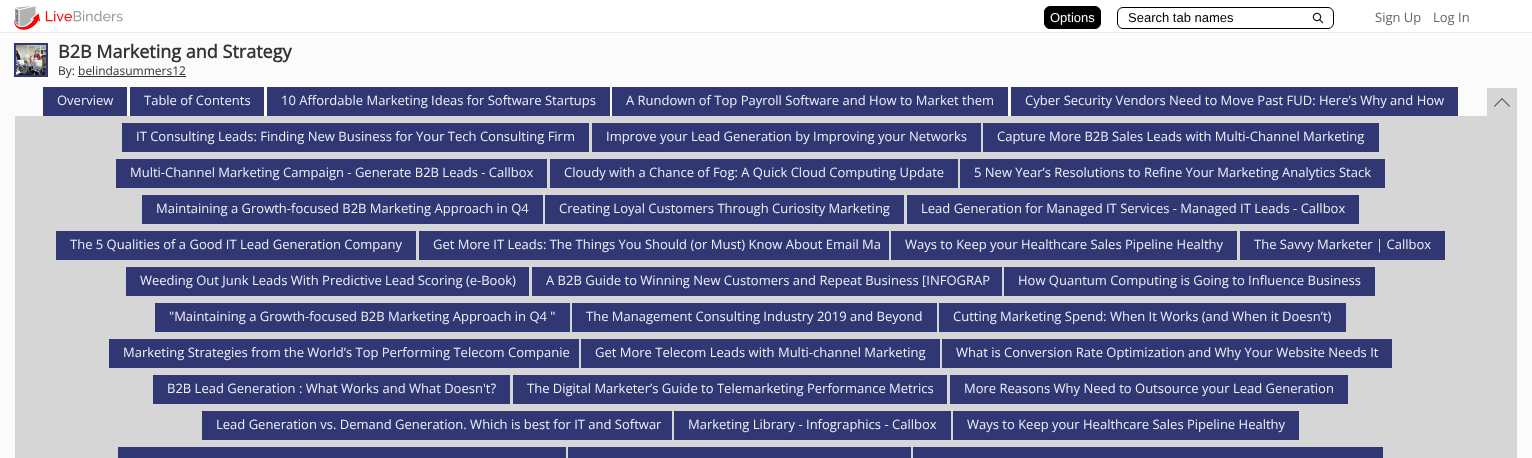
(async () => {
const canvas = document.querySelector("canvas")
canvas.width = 1532
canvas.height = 458
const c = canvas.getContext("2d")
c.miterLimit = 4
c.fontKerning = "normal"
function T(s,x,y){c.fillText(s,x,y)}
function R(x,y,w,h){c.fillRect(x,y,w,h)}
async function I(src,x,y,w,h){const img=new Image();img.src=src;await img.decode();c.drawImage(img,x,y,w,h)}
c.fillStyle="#fbfbfb"
R(0,0,1532,458)
c.fillStyle="#fff"
R(0,0,1532,32)
c.fillStyle="#ebebeb"
R(0,32,1532,1)
await I("1.png",14,6,109,24)
c.fillStyle="#000"
c.beginPath()
c.roundRect(1044.5,6.5,56,22,5.5)
c.fill()
c.strokeStyle="#000"
c.stroke()
c.font="13px Liberation Sans"
c.fillStyle="#fff"
T("Options",1050,22)
await I("2.png",1312,12,12,12)
c.beginPath()
c.roundRect(1117.5,7.5,216,21,5.5)
c.stroke()
c.fillStyle="#000"
T("Search tab names",1128,22)
c.font="13px Open Sans"
c.fillStyle="#666"
T("Sign Up",1375,22)
T("Log In",1433,22)
c.fillStyle="#313773"
R(14,43,34,34)
await I("3.png",16,45,30,30)
c.font="bold 18px Open Sans"
c.fillStyle="#333"
T("B2B Marketing and Strategy",58,58)
c.font="12px Open Sans"
T("By: belindasummers12",58,75)
R(78,76,108,1)
c.fillStyle="#d6d6d6"
R(15,116,1502,342)
c.fillStyle="#313773"
R(43,87,84,29)
c.font="13px Open Sans"
c.fillStyle="#edeff8"
T("Overview",57,105)
c.fillStyle="#313773"
R(130,87,134,29)
c.fillStyle="#edeff8"
T("Table of Contents",144,105)
c.fillStyle="#313773"
R(267,87,343,29)
c.fillStyle="#edeff8"
T("10 Affordable Marketing Ideas for Software Startups",281,105)
c.fillStyle="#313773"
R(612,87,396,29)
c.fillStyle="#edeff8"
T("A Rundown of Top Payroll Software and How to Market them",626,105)
c.fillStyle="#313773"
R(1011,87,447,29)
c.fillStyle="#edeff8"
T("Cyber Security Vendors Need to Move Past FUD: Here’s Why and How",1025,105)
c.fillStyle="#313773"
R(122,123,467,29)
c.fillStyle="#edeff8"
T("IT Consulting Leads: Finding New Business for Your Tech Consulting Firm",136,141)
c.fillStyle="#313773"
R(592,123,389,29)
c.fillStyle="#edeff8"
T("Improve your Lead Generation by Improving your Networks",606,141)
c.fillStyle="#313773"
R(983,123,396,29)
c.fillStyle="#edeff8"
T("Capture More B2B Sales Leads with Multi-Channel Marketing",997,141)
c.fillStyle="#313773"
R(116,159,431,29)
c.fillStyle="#edeff8"
T("Multi-Channel Marketing Campaign - Generate B2B Leads - Callbox",130,177)
c.fillStyle="#313773"
R(550,159,408,29)
c.fillStyle="#edeff8"
T("Cloudy with a Chance of Fog: A Quick Cloud Computing Update",564,177)
c.fillStyle="#313773"
R(960,159,425,29)
c.fillStyle="#edeff8"
T("5 New Year’s Resolutions to Refine Your Marketing Analytics Stack",974,177)
c.fillStyle="#313773"
R(142,195,401,29)
c.fillStyle="#edeff8"
T("Maintaining a Growth-focused B2B Marketing Approach in Q4",156,213)
c.fillStyle="#313773"
R(545,195,359,29)
c.fillStyle="#edeff8"
T("Creating Loyal Customers Through Curiosity Marketing",559,213)
c.fillStyle="#313773"
R(907,195,452,29)
c.fillStyle="#edeff8"
T("Lead Generation for Managed IT Services - Managed IT Leads - Callbox",921,213)
c.fillStyle="#313773"
R(56,231,360,29)
c.fillStyle="#edeff8"
T("The 5 Qualities of a Good IT Lead Generation Company",70,249)
c.fillStyle="#313773"
R(419,231,470,29)
c.fillStyle="#edeff8"
T("Get More IT Leads: The Things You Should (or Must) Know About Email Ma",433,249)
c.fillStyle="#313773"
R(891,231,346,29)
c.fillStyle="#edeff8"
T("Ways to Keep your Healthcare Sales Pipeline Healthy",905,249)
c.fillStyle="#313773"
R(1240,231,205,29)
c.fillStyle="#edeff8"
T("The Savvy Marketer | Callbox",1254,249)
c.fillStyle="#313773"
R(126,267,403,29)
c.fillStyle="#edeff8"
T("Weeding Out Junk Leads With Predictive Lead Scoring (e-Book)",140,285)
c.fillStyle="#313773"
R(532,267,470,29)
c.fillStyle="#edeff8"
T("A B2B Guide to Winning New Customers and Repeat Business [INFOGRAP",546,285)
c.fillStyle="#313773"
R(1004,267,371,29)
c.fillStyle="#edeff8"
T("How Quantum Computing is Going to Influence Business",1018,285)
c.fillStyle="#313773"
R(155,303,415,29)
c.fillStyle="#edeff8"
T("\"Maintaining a Growth-focused B2B Marketing Approach in Q4 \"",169,321)
c.fillStyle="#313773"
R(572,303,365,29)
c.fillStyle="#edeff8"
T("The Management Consulting Industry 2019 and Beyond",586,321)
c.fillStyle="#313773"
R(939,303,407,29)
c.fillStyle="#edeff8"
T("Cutting Marketing Spend: When It Works (and When it Doesn’t)",953,321)
c.fillStyle="#313773"
R(109,339,470,29)
c.fillStyle="#edeff8"
T("Marketing Strategies from the World’s Top Performing Telecom Companie",123,357)
c.fillStyle="#313773"
R(581,339,359,29)
c.fillStyle="#edeff8"
T("Get More Telecom Leads with Multi-channel Marketing",595,357)
c.fillStyle="#313773"
R(942,339,450,29)
c.fillStyle="#edeff8"
T("What is Conversion Rate Optimization and Why Your Website Needs It",956,357)
c.fillStyle="#313773"
R(153,375,357,29)
c.fillStyle="#edeff8"
T("B2B Lead Generation : What Works and What Doesn't?",167,393)
c.fillStyle="#313773"
R(513,375,434,29)
c.fillStyle="#edeff8"
T("The Digital Marketer’s Guide to Telemarketing Performance Metrics",527,393)
c.fillStyle="#313773"
R(950,375,398,29)
c.fillStyle="#edeff8"
T("More Reasons Why Need to Outsource your Lead Generation",964,393)
c.fillStyle="#313773"
R(202,411,470,29)
c.fillStyle="#edeff8"
T("Lead Generation vs. Demand Generation. Which is best for IT and Softwar",216,429)
c.fillStyle="#313773"
R(674,411,277,29)
c.fillStyle="#edeff8"
T("Marketing Library - Infographics - Callbox",688,429)
c.fillStyle="#313773"
R(953,411,346,29)
c.fillStyle="#edeff8"
T("Ways to Keep your Healthcare Sales Pipeline Healthy",967,429)
c.fillStyle="#313773"
R(118,447,448,11)
R(568,447,343,11)
R(913,447,470,11)
await I("4.png",1487,88,30,28)
})()
